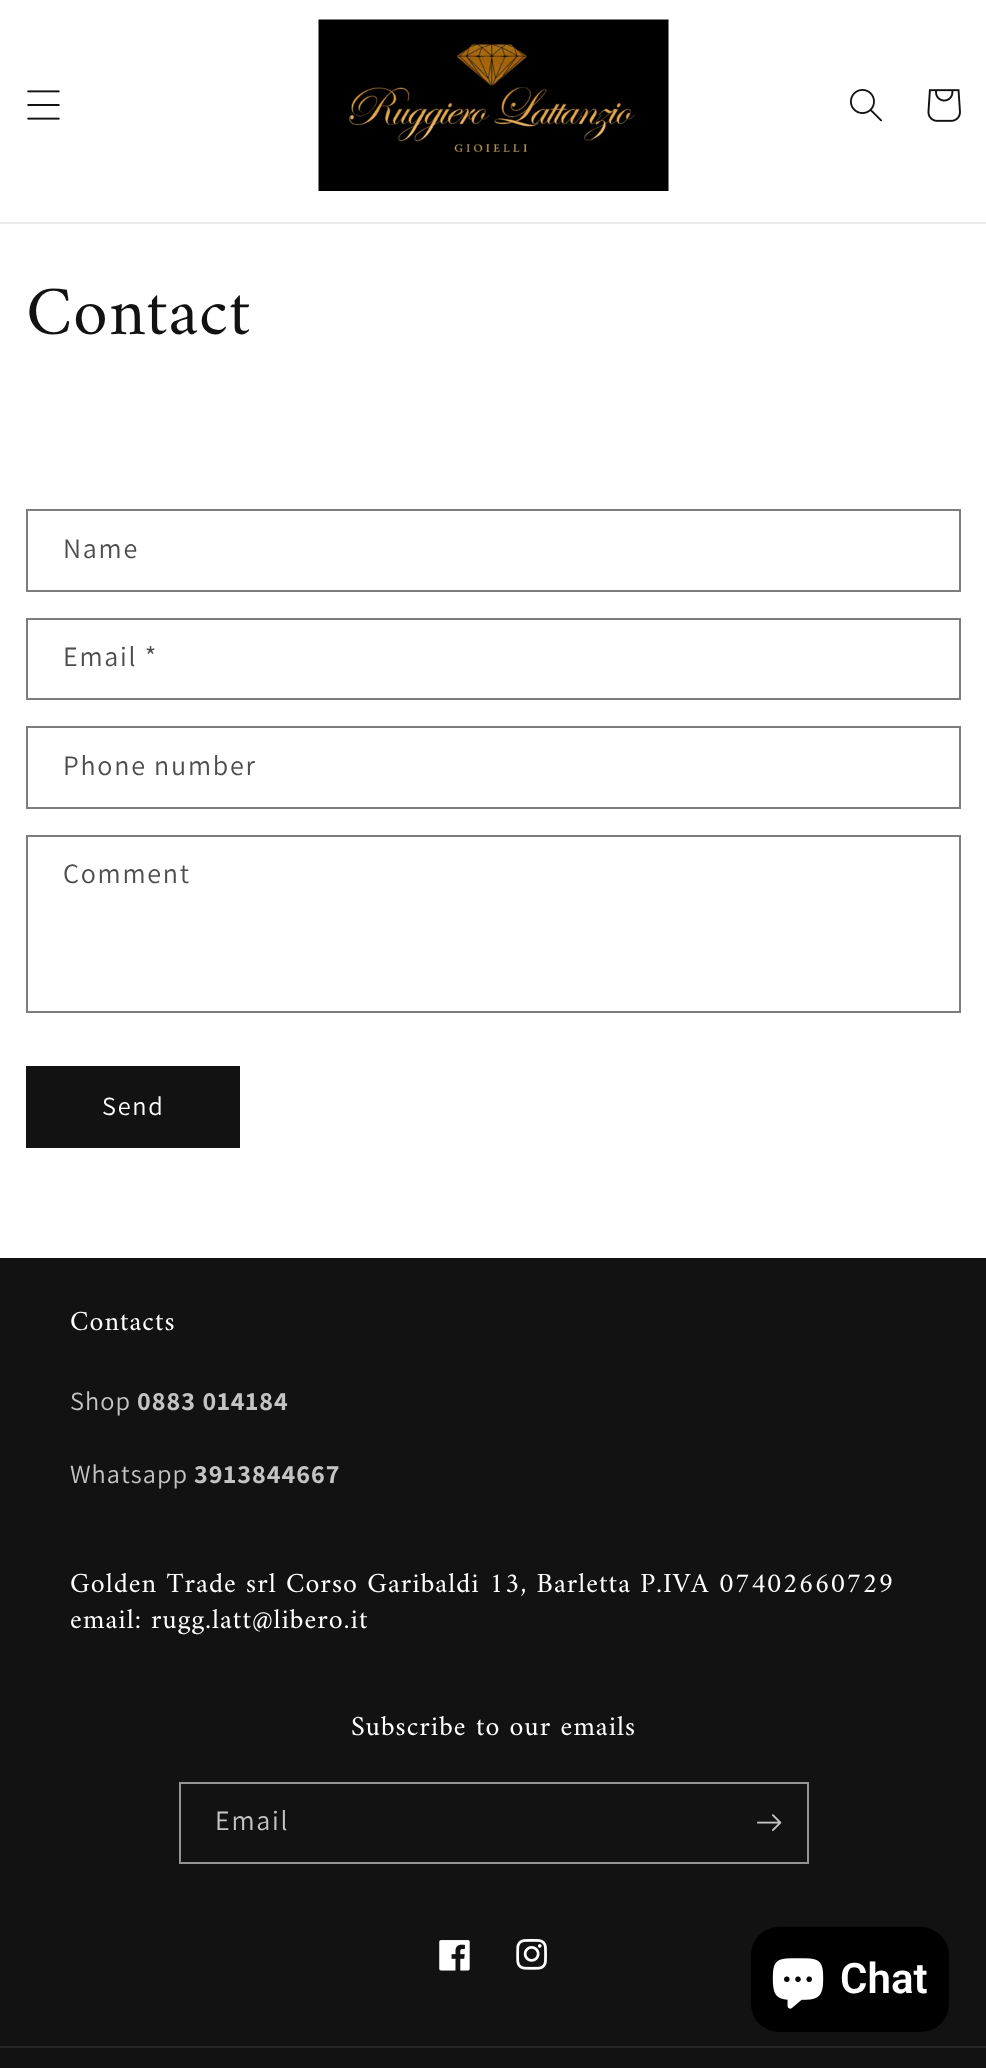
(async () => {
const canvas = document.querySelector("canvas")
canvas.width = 986
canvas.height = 2068
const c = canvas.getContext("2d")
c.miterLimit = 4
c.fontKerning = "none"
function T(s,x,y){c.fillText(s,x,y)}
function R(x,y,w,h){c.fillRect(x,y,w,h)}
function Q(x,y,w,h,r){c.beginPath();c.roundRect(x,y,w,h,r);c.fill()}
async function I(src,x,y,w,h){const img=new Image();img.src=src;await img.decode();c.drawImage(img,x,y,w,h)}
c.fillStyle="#fff"
R(0,0,986,2068)
c.fillStyle="#ececec"
R(0,222,986,2)
await I("1.png",27,90,33,30)
await I("2.png",318,19,351,172)
await I("3.png",850,89,32,33)
await I("4.png",927,89,34,33)
c.letterSpacing="1.05px"
c.font="70px Amiri"
c.fillStyle="#121212"
T("Contact",26,334)
c.strokeStyle="#7d7d7d"
c.lineWidth=2
c.strokeRect(27,510,933,81)
c.letterSpacing="1.75px"
c.font="28px Assistant"
c.fillStyle="#4d4d4d"
T("Name",63,558)
c.strokeRect(27,619,933,80)
T("Email *",63,666)
c.strokeRect(27,727,933,81)
T("Phone number",63,775)
c.strokeRect(27,836,933,176)
T("Comment",63,883)
c.fillStyle="#121212"
R(26,1066,214,82)
c.font="26.25px Assistant"
c.fillStyle="#fff"
T("Send",102,1115)
c.fillStyle="#121212"
R(0,1258,986,810)
c.letterSpacing="1.05px"
c.font="28px Amiri"
c.fillStyle="#fff"
T("Contacts",70,1330)
c.font="26.25px Assistant"
c.fillStyle="#c4c4c4"
T("Shop",70,1410)
c.font="bold 26.25px Assistant"
T("0883 014184",137,1410)
c.font="26.25px Assistant"
T("Whatsapp",70,1483)
c.font="bold 26.25px Assistant"
T("3913844667",194,1483)
c.font="28px Amiri"
c.fillStyle="#fff"
T("Golden Trade srl Corso Garibaldi 13, Barletta P.IVA",70,1592)
T("07402660729",719,1592)
T("email: rugg.latt@libero.it",70,1628)
T("Subscribe to our emails",351,1735)
c.strokeStyle="#949494"
c.strokeRect(180,1783,628,80)
c.letterSpacing="1.75px"
c.font="28px Assistant"
c.fillStyle="#c4c4c4"
T("Email",215,1830)
await I("5.png",757,1814,25,17)
await I("6.png",439,1940,31,31)
await I("7.png",516,1939,31,31)
c.fillStyle="#252525"
R(0,2046,986,2)
c.fillStyle="#000"
Q(751,1927,198,105,28)
await I("8.png",772,1958,52,51)
c.letterSpacing="0px"
c.font="600 42px Roboto"
c.fillStyle="#fff"
T("Chat",840,1993)
})()
